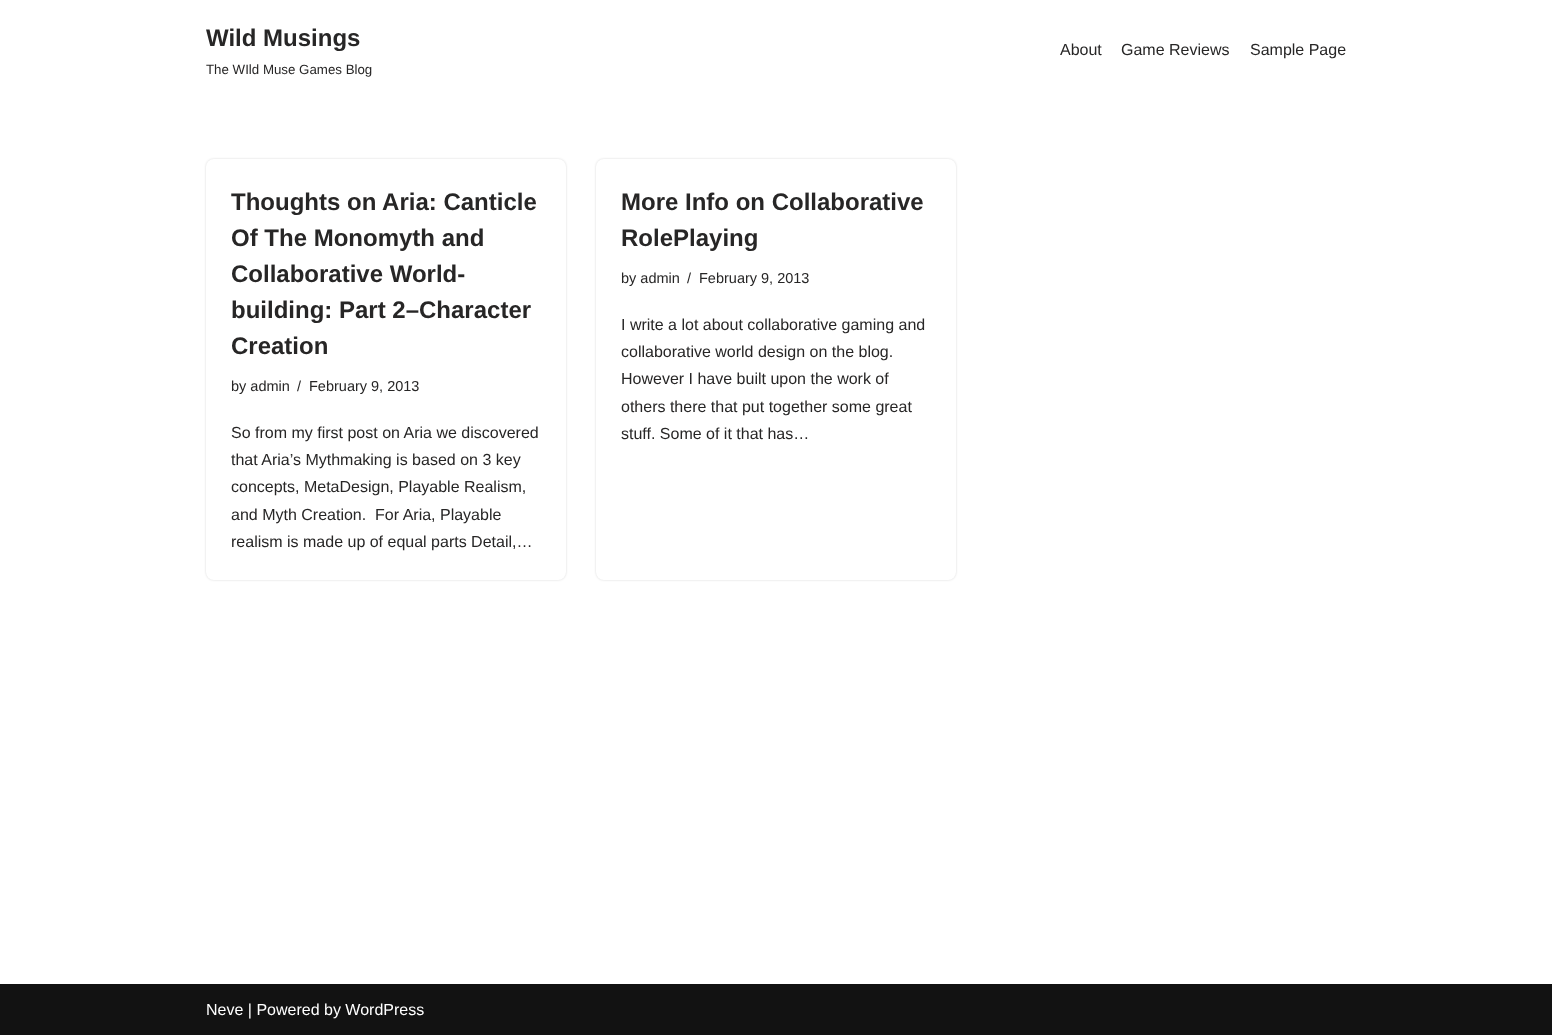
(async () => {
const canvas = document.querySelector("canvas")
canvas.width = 1552
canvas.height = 1035
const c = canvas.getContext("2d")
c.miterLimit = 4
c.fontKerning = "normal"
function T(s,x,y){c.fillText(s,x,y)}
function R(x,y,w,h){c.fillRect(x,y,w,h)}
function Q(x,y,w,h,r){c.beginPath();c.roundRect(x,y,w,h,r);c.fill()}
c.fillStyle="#fff"
R(0,0,1552,1035)
c.font="bold 24px Liberation Sans"
c.fillStyle="#272626"
T("Wild Musings",206,46)
c.font="13.3px Liberation Sans"
T("The WIld Muse Games Blog",206,74)
c.font="16px Liberation Sans"
T("About",1060,55)
T("Game Reviews",1121,55)
T("Sample Page",1250,55)
c.fillStyle="#00000026"
c.filter="blur(1px)"
c.beginPath()
c.roundRect(206,159,360,421,8)
c.fill()
c.filter="none"
c.fillStyle="#fff"
Q(206,159,360,421,8)
c.font="bold 24px Liberation Sans"
c.fillStyle="#272626"
T("Thoughts on Aria: Canticle",231,210)
T("Of The Monomyth and",231,246)
T("Collaborative World-",231,282)
T("building: Part 2–Character",231,318)
T("Creation",231,354)
c.font="14.5px Liberation Sans"
T("by admin",231,391)
T("/",297,391)
T("February 9, 2013",309,391)
c.font="16px Liberation Sans"
T("So from my first post on Aria we discovered",231,438)
T("that Aria’s Mythmaking is based on 3 key",231,465)
T("concepts, MetaDesign, Playable Realism,",231,492)
T("and Myth Creation.  For Aria, Playable",231,520)
T("realism is made up of equal parts Detail,…",231,547)
c.fillStyle="#00000026"
c.filter="blur(1px)"
c.beginPath()
c.roundRect(596,159,360,421,8)
c.fill()
c.filter="none"
c.fillStyle="#fff"
Q(596,159,360,421,8)
c.font="bold 24px Liberation Sans"
c.fillStyle="#272626"
T("More Info on Collaborative",621,210)
T("RolePlaying",621,246)
c.font="14.5px Liberation Sans"
T("by admin",621,283)
T("/",687,283)
T("February 9, 2013",699,283)
c.font="16px Liberation Sans"
T("I write a lot about collaborative gaming and",621,330)
T("collaborative world design on the blog.",621,357)
T("However I have built upon the work of",621,384)
T("others there that put together some great",621,412)
T("stuff. Some of it that has…",621,439)
c.fillStyle="#121212"
R(0,984,1552,51)
c.fillStyle="#fff"
T("Neve | Powered by WordPress",206,1015)
})()
